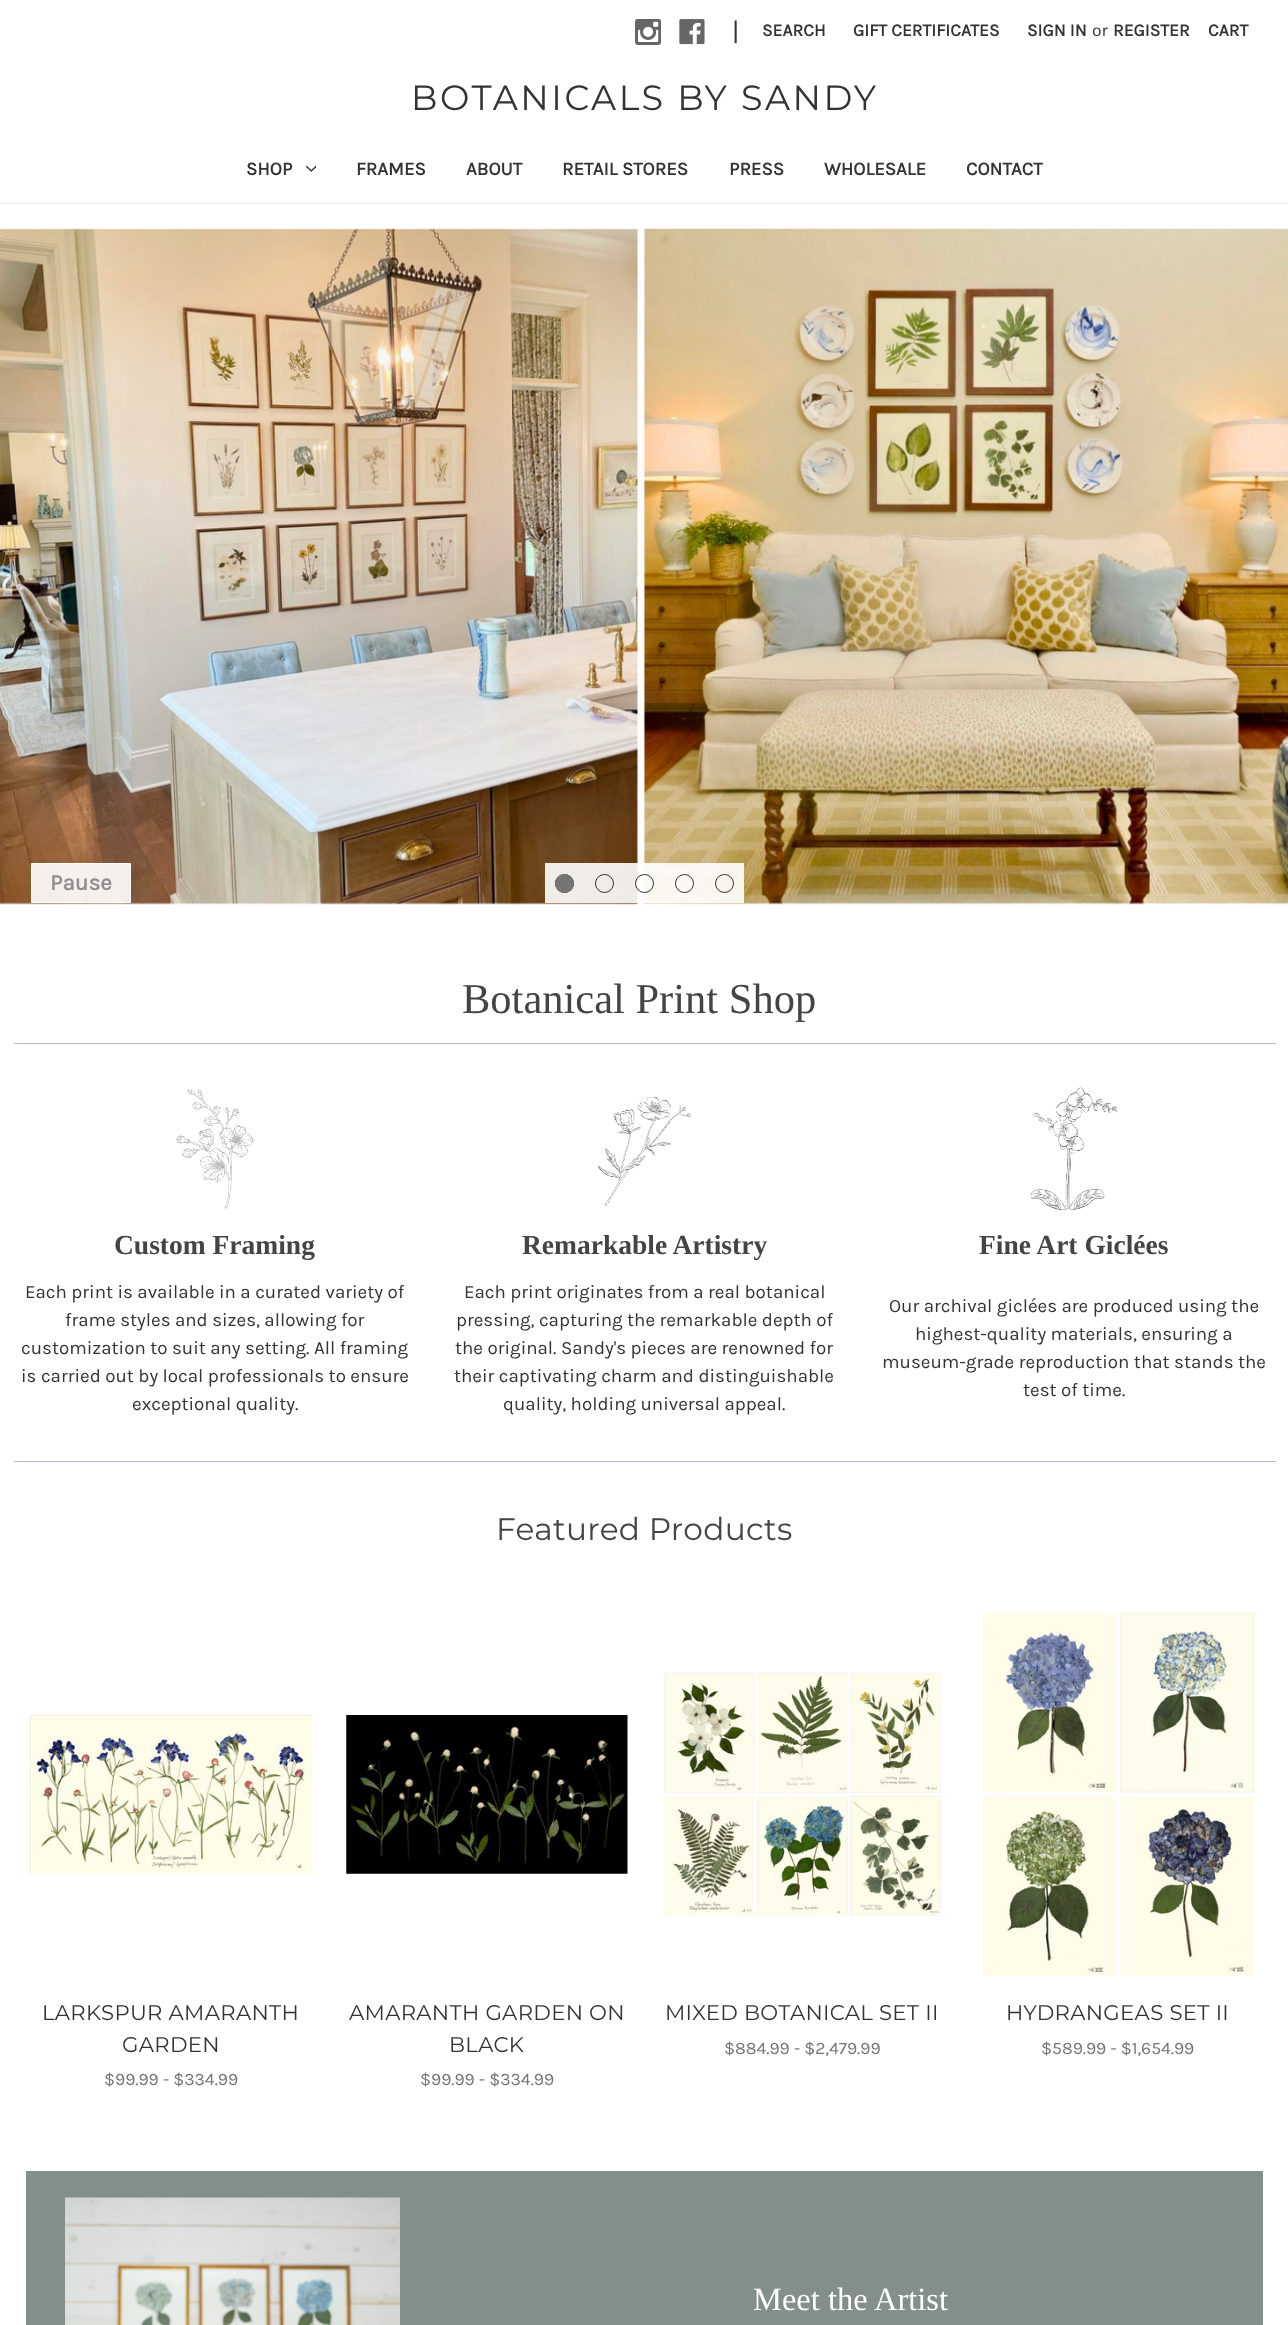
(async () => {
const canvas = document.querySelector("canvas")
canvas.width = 1288
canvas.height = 2325
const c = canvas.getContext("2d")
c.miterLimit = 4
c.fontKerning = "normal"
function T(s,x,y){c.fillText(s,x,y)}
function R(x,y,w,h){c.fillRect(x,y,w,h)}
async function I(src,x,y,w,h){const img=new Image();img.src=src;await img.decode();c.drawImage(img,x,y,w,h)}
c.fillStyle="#fff"
R(0,0,1288,2325)
c.fillStyle="#e5e5e5"
R(0,203,1288,1)
await I("1.png",635,19,26,26)
await I("2.png",679,19,26,26)
c.font="26px Karla"
c.fillStyle="#333"
T("|",732,40)
c.font="bold 17.5px Karla"
T("SEARCH",762,36)
T("GIFT CERTIFICATES",853,36)
T("SIGN IN",1027,36)
c.font="17.5px Karla"
T("or",1092,36)
c.font="bold 17.5px Karla"
T("REGISTER",1113,36)
T("CART",1208,36)
c.letterSpacing="2.5px"
c.font="35px Montserrat"
T("BOTANICALS BY SANDY",411,110)
c.letterSpacing="0px"
c.font="bold 18.75px Karla"
T("SHOP",246,175)
await I("3.png",306,165,10,7)
T("FRAMES",356,175)
T("ABOUT",466,175)
T("RETAIL STORES",562,175)
T("PRESS",729,175)
T("WHOLESALE",824,175)
T("CONTACT",966,175)
await I("4.png",0,228,1288,677)
c.fillStyle="#ffffffe6"
c.beginPath()
c.rect(31.5,863.5,99,39)
c.fill()
c.strokeStyle="#fff"
c.stroke()
c.font="bold 22.5px Karla"
c.fillStyle="#8f8f8f"
T("Pause",50,890)
c.fillStyle="#ffffffe6"
R(545,863,40,40)
c.beginPath()
c.arc(564.5,883.5,9,0,7)
c.strokeStyle="#333"
c.stroke()
c.fillStyle="#757575"
c.beginPath()
c.arc(564.5,883.5,9.5,0,7)
c.fill()
c.fillStyle="#ffffffe6"
R(585,863,40,40)
c.beginPath()
c.arc(604.5,883.5,9,0,7)
c.stroke()
R(625,863,39,40)
c.beginPath()
c.arc(644.5,883.5,9,0,7)
c.stroke()
R(664,863,40,40)
c.beginPath()
c.arc(684.5,883.5,9,0,7)
c.stroke()
R(704,863,40,40)
c.beginPath()
c.arc(724.5,883.5,9,0,7)
c.stroke()
c.font="42.5px Liberation Serif"
c.fillStyle="#444"
T("Botanical Print Shop",462,1013)
c.fillStyle="#b4bad1"
R(14,1043,1262,1)
await I("5.png",176,1089,78,120)
c.font="bold 27.5px Liberation Serif"
c.fillStyle="#444"
T("Custom Framing",114,1254)
await I("6.png",598,1096,93,110)
T("Remarkable Artistry",522,1254)
await I("7.png",1030,1087,88,123)
T("Fine Art Giclées",979,1254)
c.font="18.75px Karla"
c.fillStyle="#333"
T("Each print is available in a curated variety of",25,1298)
T("frame styles and sizes, allowing for",65,1326)
T("customization to suit any setting. All framing",21,1354)
T("is carried out by local professionals to ensure",21,1382)
T("exceptional quality.",132,1410)
T("Each print originates from a real botanical",464,1298)
T("pressing, capturing the remarkable depth of",456,1326)
T("the original. Sandy's pieces are renowned for",455,1354)
T("their captivating charm and distinguishable",454,1382)
T("quality, holding universal appeal.",503,1410)
T("Our archival giclées are produced using the",889,1312)
T("highest-quality materials, ensuring a",915,1340)
T("museum-grade reproduction that stands the",882,1368)
T("test of time.",1023,1396)
c.fillStyle="#b4bad1"
R(14,1461,1262,1)
c.letterSpacing="0.3px"
c.font="31.25px Montserrat"
c.fillStyle="#444"
T("Featured Products",496,1540)
await I("8.png",30,1715,283,159)
c.font="21.25px Montserrat"
c.fillStyle="#333"
T("LARKSPUR AMARANTH",42,2020)
T("GARDEN",122,2052)
c.letterSpacing="0px"
c.font="17.5px Karla"
c.fillStyle="#757575"
T("$99.99 - $334.99",104,2085)
await I("9.png",346,1715,282,159)
c.letterSpacing="0.3px"
c.font="21.25px Montserrat"
c.fillStyle="#333"
T("AMARANTH GARDEN ON",349,2020)
T("BLACK",449,2052)
c.letterSpacing="0px"
c.font="17.5px Karla"
c.fillStyle="#757575"
T("$99.99 - $334.99",420,2085)
await I("10.png",664,1672,277,244)
c.letterSpacing="0.3px"
c.font="21.25px Montserrat"
c.fillStyle="#333"
T("MIXED BOTANICAL SET II",665,2020)
c.letterSpacing="0px"
c.font="17.5px Karla"
c.fillStyle="#757575"
T("$884.99 - $2,479.99",724,2054)
await I("11.png",982,1612,273,364)
c.letterSpacing="0.3px"
c.font="21.25px Montserrat"
c.fillStyle="#333"
T("HYDRANGEAS SET II",1006,2020)
c.letterSpacing="0px"
c.font="17.5px Karla"
c.fillStyle="#757575"
T("$589.99 - $1,654.99",1041,2054)
c.fillStyle="#838f8c"
R(26,2171,1237,154)
await I("12.png",65,2197,335,128)
c.font="32.5px Liberation Serif"
c.fillStyle="#fff"
T("Meet the Artist",753,2310)
})()
